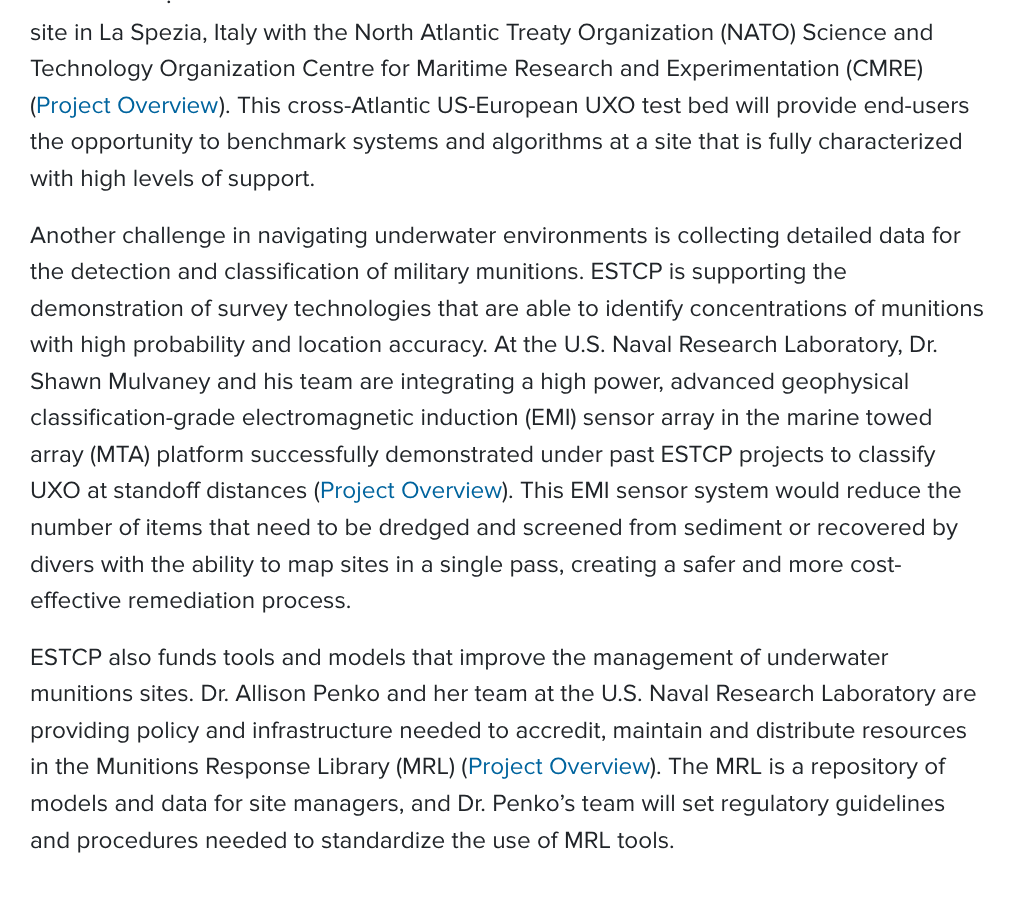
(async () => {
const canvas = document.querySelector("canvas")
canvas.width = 1022
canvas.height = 922
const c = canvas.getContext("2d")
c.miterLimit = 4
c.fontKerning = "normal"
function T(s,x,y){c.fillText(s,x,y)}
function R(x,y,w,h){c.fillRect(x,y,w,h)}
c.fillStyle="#fff"
R(0,0,1022,922)
c.font="24.35px Proxima Nova"
c.fillStyle="#212529"
T(".",166,3)
T("site in La Spezia, Italy with the North Atlantic Treaty Organization (NATO) Science and",30,40)
T("Technology Organization Centre for Maritime Research and Experimentation (CMRE)",30,76)
T("(",30,113)
c.fillStyle="#00649e"
T("Project Overview",36,113)
c.fillStyle="#212529"
T("). This cross-Atlantic US-European UXO test bed will provide end-users",219,113)
T("the opportunity to benchmark systems and algorithms at a site that is fully characterized",30,149)
T("with high levels of support.",30,186)
T("Another challenge in navigating underwater environments is collecting detailed data for",30,243)
T("the detection and classification of military munitions. ESTCP is supporting the",30,279)
T("demonstration of survey technologies that are able to identify concentrations of munitions",30,316)
T("with high probability and location accuracy. At the U.S. Naval Research Laboratory, Dr.",30,352)
T("Shawn Mulvaney and his team are integrating a high power, advanced geophysical",30,389)
T("classification-grade electromagnetic induction (EMI) sensor array in the marine towed",30,425)
T("array (MTA) platform successfully demonstrated under past ESTCP projects to classify",30,462)
T("UXO at standoff distances (",30,498)
c.fillStyle="#00649e"
T("Project Overview",320,498)
c.fillStyle="#212529"
T("). This EMI sensor system would reduce the",502,498)
T("number of items that need to be dredged and screened from sediment or recovered by",30,535)
T("divers with the ability to map sites in a single pass, creating a safer and more cost-",30,572)
T("effective remediation process.",30,608)
T("ESTCP also funds tools and models that improve the management of underwater",30,665)
T("munitions sites. Dr. Allison Penko and her team at the U.S. Naval Research Laboratory are",30,701)
T("providing policy and infrastructure needed to accredit, maintain and distribute resources",30,738)
T("in the Munitions Response Library (MRL) (",30,774)
c.fillStyle="#00649e"
T("Project Overview",468,774)
c.fillStyle="#212529"
T("). The MRL is a repository of",650,774)
T("models and data for site managers, and Dr. Penko’s team will set regulatory guidelines",30,811)
T("and procedures needed to standardize the use of MRL tools.",30,848)
})()
